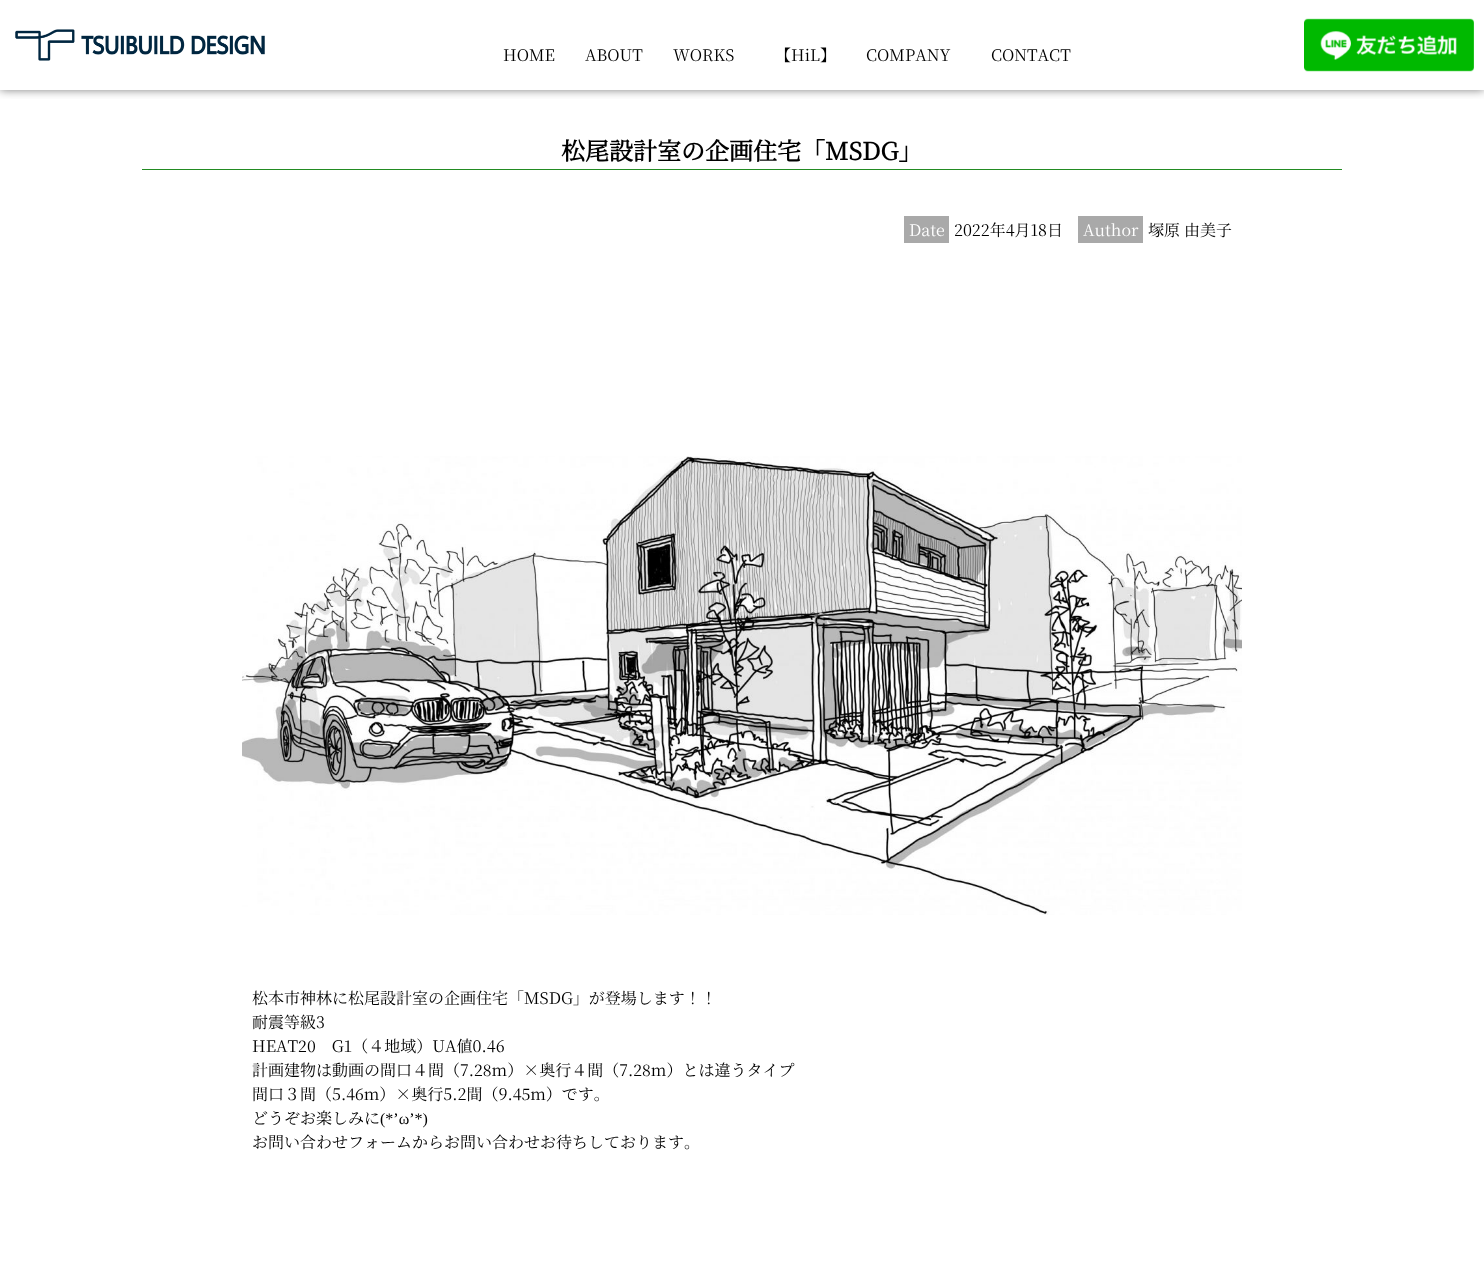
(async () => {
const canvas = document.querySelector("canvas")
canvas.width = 1484
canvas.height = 1270
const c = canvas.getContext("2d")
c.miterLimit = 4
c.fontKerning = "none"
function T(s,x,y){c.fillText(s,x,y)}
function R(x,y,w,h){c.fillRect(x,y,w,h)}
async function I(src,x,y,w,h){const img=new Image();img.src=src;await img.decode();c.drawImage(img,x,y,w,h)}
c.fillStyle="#fff"
R(0,0,1484,1270)
c.save()
c.beginPath()
c.rect(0,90,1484,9)
c.clip()
c.fillStyle="#00000080"
c.filter="blur(5px)"
c.beginPath()
c.rect(0,0,1484,90)
c.fill()
c.filter="none"
c.restore()
await I("1.png",15,29,250,32)
c.font="200 16px Noto Serif JP"
c.fillStyle="#000"
T("HOME",503,61)
T("ABOUT",585,61)
T("WORKS",673,61)
T("【HiL】",775,61)
T("COMPANY",866,61)
T("CONTACT",991,61)
await I("2.png",1304,18,170,54)
c.fillStyle="#228b22"
R(142,169,1200,1)
c.font="bold 24px Noto Serif JP"
c.fillStyle="#000"
T("松尾設計室の企画住宅「MSDG」",561,160)
c.fillStyle="#a9a9a9"
R(904,216,45,27)
c.font="200 16px Noto Serif JP"
c.fillStyle="#fff"
T("Date",909,236)
c.fillStyle="#000"
T("2022年4月18日",954,236)
c.fillStyle="#a9a9a9"
R(1078,216,65,27)
c.fillStyle="#fff"
T("Author",1083,236)
c.fillStyle="#000"
T("塚原 由美子",1148,236)
await I("3.png",242,456,1000,459)
T("松本市神林に松尾設計室の企画住宅「MSDG」が登場します！！",252,1004)
T("耐震等級3",252,1028)
T("HEAT20　G1（４地域）UA値0.46",252,1052)
T("計画建物は動画の間口４間（7.28m）×奥行４間（7.28m）とは違うタイプ",252,1076)
T("間口３間（5.46m）×奥行5.2間（9.45m）です。",252,1100)
T("どうぞお楽しみに",252,1124)
c.font="16px Liberation Serif"
T("(*’ω’*)",380,1124)
c.font="200 16px Noto Serif JP"
T("お問い合わせフォームからお問い合わせお待ちしております。",252,1148)
})()
